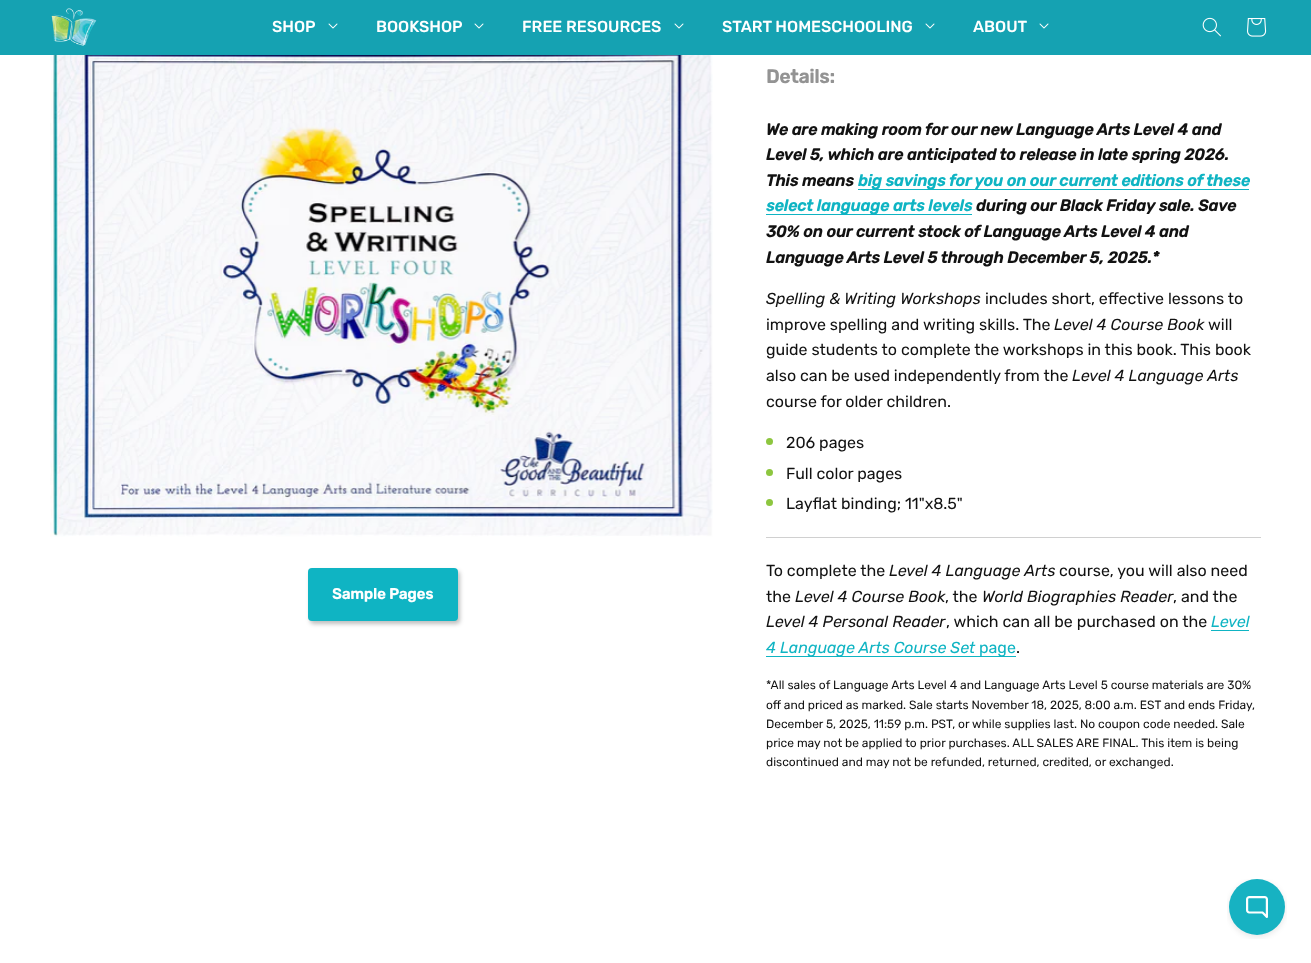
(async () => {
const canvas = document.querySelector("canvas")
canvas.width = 1311
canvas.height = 963
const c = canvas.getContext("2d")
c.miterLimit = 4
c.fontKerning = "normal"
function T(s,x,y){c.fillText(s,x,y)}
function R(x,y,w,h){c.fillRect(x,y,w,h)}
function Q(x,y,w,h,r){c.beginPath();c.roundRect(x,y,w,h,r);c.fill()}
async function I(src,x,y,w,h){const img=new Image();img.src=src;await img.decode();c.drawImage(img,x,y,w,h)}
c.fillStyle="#fff"
R(0,0,1311,963)
c.fillStyle="#15a2b2"
R(0,0,1311,55)
await I("1.png",51,8,46,38)
c.font="500 16px Rubik"
c.fillStyle="#fff"
T("SHOP",272,32)
await I("2.png",328,23,10,6)
T("BOOKSHOP",376,32)
await I("2.png",474,23,10,6)
T("FREE RESOURCES",522,32)
await I("2.png",674,23,10,6)
T("START HOMESCHOOLING",722,32)
await I("2.png",925,23,10,6)
T("ABOUT",973,32)
await I("2.png",1039,23,10,6)
await I("3.png",1202,17,19,20)
await I("4.png",1247,18,20,19)
await I("5.png",50,55,663,482)
c.fillStyle="#00000040"
c.filter="blur(2px)"
c.beginPath()
c.roundRect(310,571,150,53,4)
c.fill()
c.filter="none"
c.fillStyle="#0fb4c3"
Q(308,568,150,53,4)
c.font="bold 15px Rubik"
c.fillStyle="#fff"
T("Sample Pages",332,599)
c.font="bold 19px Rubik"
c.fillStyle="#939393"
T("Details:",766,83)
c.font="italic bold 16px Rubik"
c.fillStyle="#121212"
T("We are making room for our new Language Arts Level 4 and",766,135)
T("Level 5, which are anticipated to release in late spring 2026.",766,160)
T("This means",766,186)
c.fillStyle="#0fb4c3"
R(858,189,391,1)
T("big savings for you on our current editions of these",858,186)
R(766,214,206,1)
T("select language arts levels",766,211)
c.fillStyle="#121212"
T("during our Black Friday sale. Save",976,211)
T("30% on our current stock of Language Arts Level 4 and",766,237)
T("Language Arts Level 5 through December 5, 2025.*",766,263)
c.font="italic 16px Rubik"
T("Spelling & Writing Workshops",766,304)
c.font="16px Rubik"
T("includes short, effective lessons to",985,304)
T("improve spelling and writing skills. The",766,330)
c.font="italic 16px Rubik"
T("Level 4 Course Book",1054,330)
c.font="16px Rubik"
T("will",1208,330)
T("guide students to complete the workshops in this book. This book",766,355)
T("also can be used independently from the",766,381)
c.font="italic 16px Rubik"
T("Level 4 Language Arts",1072,381)
c.font="16px Rubik"
T("course for older children.",766,407)
c.fillStyle="#8dc63f"
c.beginPath()
c.arc(769.5,441.5,3.5,0,7)
c.fill()
c.fillStyle="#121212"
T("206 pages",786,448)
c.fillStyle="#8dc63f"
c.beginPath()
c.arc(769.5,472.5,3.5,0,7)
c.fill()
c.fillStyle="#121212"
T("Full color pages",786,479)
c.fillStyle="#8dc63f"
c.beginPath()
c.arc(769.5,502.5,3.5,0,7)
c.fill()
c.fillStyle="#121212"
T("Layflat binding; 11\"x8.5\"",786,509)
c.fillStyle="#d0d0d0"
R(766,537,495,1)
c.fillStyle="#121212"
T("To complete the",766,576)
c.font="italic 16px Rubik"
T("Level 4 Language Arts",889,576)
c.font="16px Rubik"
T("course, you will also need",1059,576)
T("the",766,602)
c.font="italic 16px Rubik"
T("Level 4 Course Book",795,602)
c.font="16px Rubik"
T(", the",945,602)
c.font="italic 16px Rubik"
T("World Biographies Reader",982,602)
c.font="16px Rubik"
T(", and the",1173,602)
c.font="italic 16px Rubik"
T("Level 4 Personal Reader",766,627)
c.font="16px Rubik"
T(", which can all be purchased on the",946,627)
c.font="italic 16px Rubik"
c.fillStyle="#0fb4c3"
T("Level",1211,627)
R(1211,630,38,1)
R(766,656,209,1)
T("4 Language Arts Course Set",766,653)
R(975,656,41,1)
c.font="16px Rubik"
T("page",979,653)
c.fillStyle="#121212"
T(".",1016,653)
c.font="12px Rubik"
T("*All sales of Language Arts Level 4 and Language Arts Level 5 course materials are 30%",766,689)
T("off and priced as marked. Sale starts November 18, 2025, 8:00 a.m. EST and ends Friday,",766,709)
T("December 5, 2025, 11:59 p.m. PST, or while supplies last. No coupon code needed. Sale",766,728)
T("price may not be applied to prior purchases. ALL SALES ARE FINAL. This item is being",766,747)
T("discontinued and may not be refunded, returned, credited, or exchanged.",766,766)
await I("6.png",1227,879,60,60)
})()
